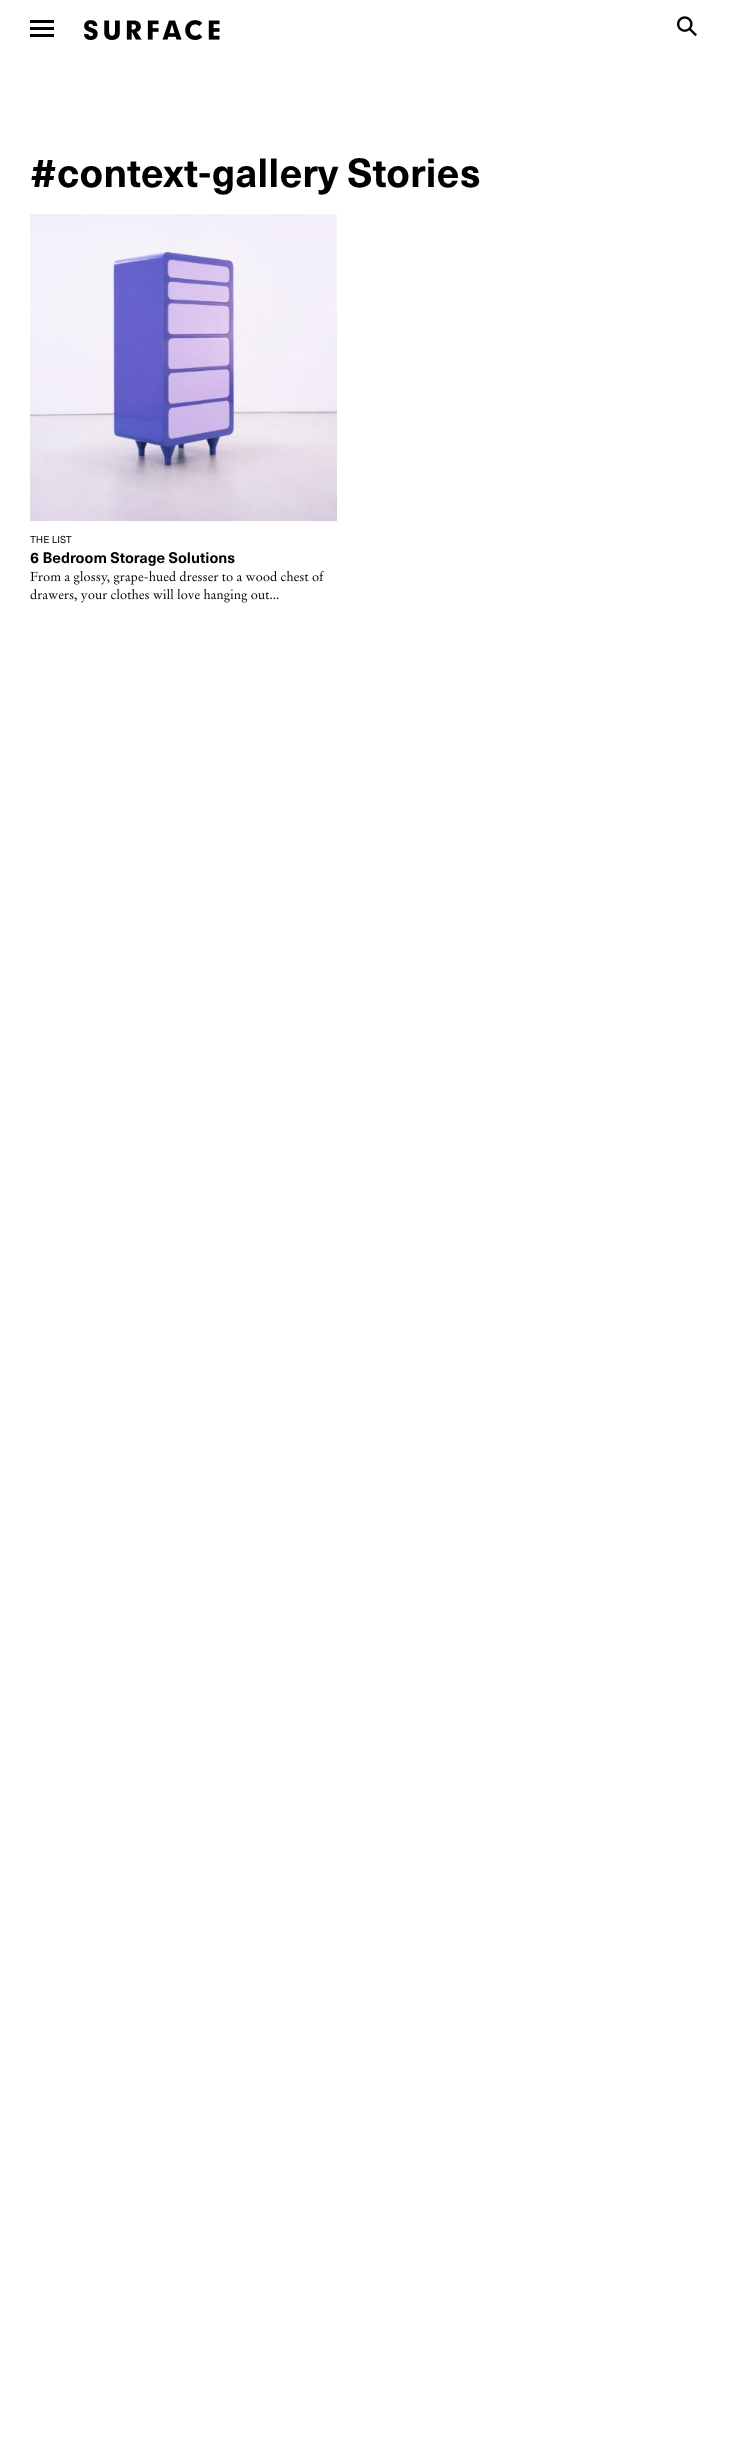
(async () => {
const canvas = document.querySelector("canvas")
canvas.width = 733
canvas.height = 2462
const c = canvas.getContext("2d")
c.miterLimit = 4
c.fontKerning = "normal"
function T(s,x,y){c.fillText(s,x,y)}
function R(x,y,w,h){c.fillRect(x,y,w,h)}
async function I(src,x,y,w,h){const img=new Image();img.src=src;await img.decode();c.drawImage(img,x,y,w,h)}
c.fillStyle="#fff"
R(0,0,733,2462)
c.fillStyle="#000"
R(30,20,24,3)
R(30,27,24,3)
R(30,34,24,3)
await I("1.png",84,20,136,20)
await I("2.png",677,16,20,21)
c.font="40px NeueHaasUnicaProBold"
T("#context-gallery Stories",30,187)
await I("3.png",30,214,307,307)
c.font="10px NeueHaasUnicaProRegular"
T("THE LIST",30,543)
c.font="15px NeueHaasUnicaProBold"
T("6 Bedroom Storage Solutions",30,563)
await I("4.png",30,570,294,15)
await I("5.png",30,589,249,14)
})()
